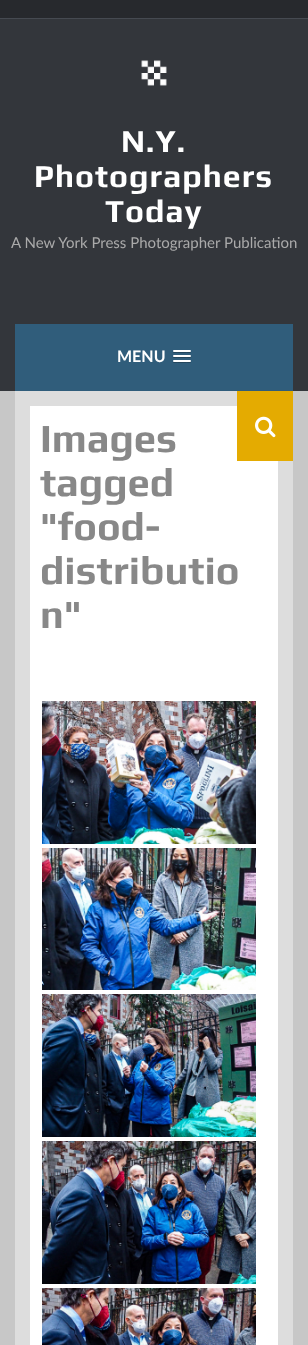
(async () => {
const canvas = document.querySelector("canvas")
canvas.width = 308
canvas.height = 1345
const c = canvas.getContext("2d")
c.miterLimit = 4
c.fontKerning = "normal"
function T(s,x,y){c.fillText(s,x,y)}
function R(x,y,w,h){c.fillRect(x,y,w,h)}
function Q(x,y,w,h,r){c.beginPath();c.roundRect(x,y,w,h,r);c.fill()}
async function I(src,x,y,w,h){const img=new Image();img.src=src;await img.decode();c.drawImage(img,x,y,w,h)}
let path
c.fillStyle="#27292d"
R(0,0,308,1345)
c.fillStyle="#33363b"
R(0,19,308,305)
c.fillStyle="#464a51"
R(0,18,308,1)
await I("1.png",141,60,26,26)
c.letterSpacing="1px"
c.font="bold 32px Play"
c.fillStyle="#fff"
T("N.Y.",121,152)
T("Photographers",34,187)
T("Today",105,222)
c.letterSpacing="0px"
c.font="15px Lato"
c.fillStyle="#aaa"
T("A New York Press Photographer Publication",11,248)
c.fillStyle="#305d7b"
R(15,324,278,67)
c.fillStyle="#33363b"
R(293,324,15,67)
R(0,324,15,67)
c.font="bold 16px Lato"
c.fillStyle="#fff"
T("MENU",117,362)
c.fillStyle="#24465c"
path = new Path2D("M173 351.5c-1 2 3.5 1.5 3.5 1.5h11c0 0 4.5 .5 3.5-1.5c-1 1-7.5 .5-9 .5c-1.5 0-8 .5-9-.5z")
c.fill(path)
c.fillStyle="#fff"
Q(173,350,18,2,1)
c.fillStyle="#24465c"
path = new Path2D("M173 356.5c-1 2 3.5 1.5 3.5 1.5h11c0 0 4.5 .5 3.5-1.5c-1 1-7.5 .5-9 .5c-1.5 0-8 .5-9-.5z")
c.fill(path)
c.fillStyle="#fff"
Q(173,355,18,2,1)
c.fillStyle="#24465c"
path = new Path2D("M173 361.5c-1 2 3.5 1.5 3.5 1.5h11c0 0 4.5 .5 3.5-1.5c-1 1-7.5 .5-9 .5c-1.5 0-8 .5-9-.5z")
c.fill(path)
c.fillStyle="#fff"
Q(173,360,18,2,1)
c.fillStyle="#ddd"
R(15,391,278,954)
c.fillStyle="#fff"
R(30,406,248,939)
c.fillStyle="#e4ab01"
R(237,391,56,70)
await I("2.png",255,416,21,22)
c.fillStyle="#c7c7c7"
R(293,391,15,954)
R(0,391,15,954)
c.font="bold 40px Play"
c.fillStyle="#888"
T("Images",40,452)
T("tagged",40,496)
T("\"food-",40,540)
T("distributio",40,584)
T("n\"",40,628)
await I("3.png",42,701,214,143)
await I("4.png",42,848,214,142)
await I("5.png",42,994,214,143)
await I("6.png",42,1141,214,143)
await I("7.png",42,1288,214,57)
})()
